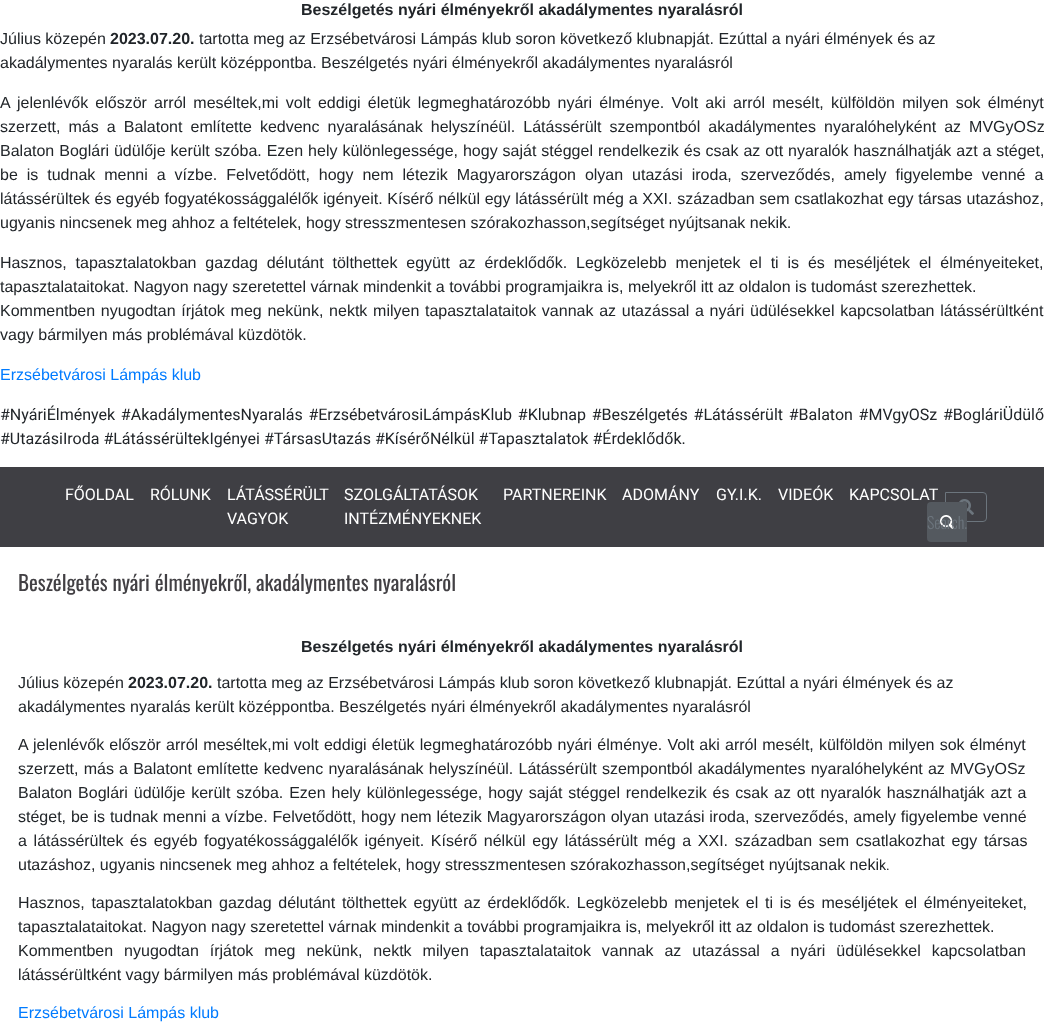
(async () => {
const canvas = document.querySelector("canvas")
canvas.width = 1044
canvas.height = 1030
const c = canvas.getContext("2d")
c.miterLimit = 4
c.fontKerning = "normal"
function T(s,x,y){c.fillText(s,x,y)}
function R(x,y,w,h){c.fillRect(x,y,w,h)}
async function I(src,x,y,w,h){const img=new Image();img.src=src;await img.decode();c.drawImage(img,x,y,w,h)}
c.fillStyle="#fff"
R(0,0,1044,1030)
c.font="bold 16px Liberation Sans"
c.fillStyle="#212529"
T("Beszélgetés nyári élményekről akadálymentes nyaralásról",301,15)
c.font="16px Liberation Sans"
T("Július közepén",0,44)
c.font="bold 16px Liberation Sans"
T("2023.07.20.",110,44)
c.font="16px Liberation Sans"
T("tartotta meg az Erzsébetvárosi Lámpás klub soron következő klubnapját. Ezúttal a nyári élmények és az",199,44)
T("akadálymentes nyaralás került középpontba. Beszélgetés nyári élményekről akadálymentes nyaralásról",0,68)
c.wordSpacing="2.75px"
T("A jelenlévők először arról meséltek,mi volt eddigi életük legmeghatározóbb nyári élménye. Volt aki arról mesélt, külföldön milyen sok élményt",0,108)
c.wordSpacing="3.6px"
T("szerzett, más a Balatont említette kedvenc nyaralásának helyszínéül. Látássérült szempontból akadálymentes nyaralóhelyként az MVGyOSz",0,132)
c.wordSpacing="0.5px"
T("Balaton Boglári üdülője került szóba. Ezen hely különlegessége, hogy saját stéggel rendelkezik és csak az ott nyaralók használhatják azt a stéget,",0,156)
c.wordSpacing="4.5px"
T("be is tudnak menni a vízbe. Felvetődött, hogy nem létezik Magyarországon olyan utazási iroda, szerveződés, amely figyelembe venné a",0,180)
c.wordSpacing="0.25px"
T("látássérültek és egyéb fogyatékossággalélők igényeit. Kísérő nélkül egy látássérült még a XXI. században sem csatlakozhat egy társas utazáshoz,",0,204)
c.wordSpacing="0px"
T("ugyanis nincsenek meg ahhoz a feltételek, hogy stresszmentesen szórakozhasson,segítséget nyújtsanak neki",0,228)
c.font="16px Roboto"
T("k.",779,228)
c.wordSpacing="4.4px"
c.font="16px Liberation Sans"
T("Hasznos, tapasztalatokban gazdag délutánt tölthettek együtt az érdeklődők. Legközelebb menjetek el ti is és meséljétek el élményeiteket,",0,268)
c.wordSpacing="0px"
T("tapasztalataitokat. Nagyon nagy szeretettel várnak mindenkit a további programjaikra is, melyekről itt az oldalon is tudomást szerezhettek.",0,292)
c.wordSpacing="1.25px"
T("Kommentben nyugodtan írjátok meg nekünk, nektk milyen tapasztalataitok vannak az utazással a nyári üdülésekkel kapcsolatban látássérültként",0,316)
c.wordSpacing="0px"
T("vagy bármilyen más problémával küzdötök.",0,340)
c.fillStyle="#007bff"
T("Erzsébetvárosi Lámpás klub",0,380)
c.wordSpacing="1.75px"
c.font="16px Roboto"
c.fillStyle="#212529"
T("#NyáriÉlmények #AkadálymentesNyaralás #ErzsébetvárosiLámpásKlub #Klubnap #Beszélgetés #Látássérült #Balaton #MVgyOSz #BogláriÜdülő",0,420)
c.wordSpacing="0px"
T("#UtazásiIroda #LátássérültekIgényei #TársasUtazás #KísérőNélkül #Tapasztalatok #Érdeklődők.",0,444)
c.fillStyle="#3f3f44"
R(0,467,1044,80)
c.fillStyle="#fff"
T("FŐOLDAL",65,500)
T("RÓLUNK",150,500)
T("LÁTÁSSÉRÜLT",227,500)
T("VAGYOK",227,524)
T("SZOLGÁLTATÁSOK",344,500)
T("INTÉZMÉNYEKNEK",344,524)
T("PARTNEREINK",503,500)
T("ADOMÁNY",622,500)
T("GY.I.K.",716,500)
T("VIDEÓK",778,500)
T("KAPCSOLAT",849,500)
c.beginPath()
c.roundRect(945.5,492.5,41,29,[0,3.5,3.5,0])
c.strokeStyle="#6c757d"
c.stroke()
await I("1.png",959,499,15,16)
c.fillStyle="#54595f"
c.beginPath()
c.roundRect(927,502,40,40,[4,0,0,4])
c.fill()
await I("2.png",940,515,14,14)
c.font="300 16px Oswald"
c.fillStyle="#6c757d"
T("Search.",927,529)
c.font="21px Oswald"
c.fillStyle="#424044"
T("Beszélgetés nyári élményekről, akadálymentes nyaralásról",18,591)
c.font="bold 16px Liberation Sans"
c.fillStyle="#212529"
T("Beszélgetés nyári élményekről akadálymentes nyaralásról",301,652)
c.font="16px Liberation Sans"
T("Július közepén",18,688)
c.font="bold 16px Liberation Sans"
T("2023.07.20.",128,688)
c.font="16px Liberation Sans"
T("tartotta meg az Erzsébetvárosi Lámpás klub soron következő klubnapját. Ezúttal a nyári élmények és az",217,688)
T("akadálymentes nyaralás került középpontba. Beszélgetés nyári élményekről akadálymentes nyaralásról",18,712)
c.wordSpacing="0.75px"
T("A jelenlévők először arról meséltek,mi volt eddigi életük legmeghatározóbb nyári élménye. Volt aki arról mesélt, külföldön milyen sok élményt",18,750)
T("szerzett, más a Balatont említette kedvenc nyaralásának helyszínéül. Látássérült szempontból akadálymentes nyaralóhelyként az MVGyOSz",18,774)
c.wordSpacing="1.4px"
T("Balaton Boglári üdülője került szóba. Ezen hely különlegessége, hogy saját stéggel rendelkezik és csak az ott nyaralók használhatják azt a",18,798)
c.wordSpacing="0.4px"
T("stéget, be is tudnak menni a vízbe. Felvetődött, hogy nem létezik Magyarországon olyan utazási iroda, szerveződés, amely figyelembe venné",18,822)
c.wordSpacing="2.25px"
T("a látássérültek és egyéb fogyatékossággalélők igényeit. Kísérő nélkül egy látássérült még a XXI. században sem csatlakozhat egy társas",18,846)
c.wordSpacing="0px"
T("utazáshoz, ugyanis nincsenek meg ahhoz a feltételek, hogy stresszmentesen szórakozhasson,segítséget nyújtsanak neki",18,870)
c.font="14px Roboto"
T("k.",879,870)
c.wordSpacing="2.25px"
c.font="16px Liberation Sans"
T("Hasznos, tapasztalatokban gazdag délutánt tölthettek együtt az érdeklődők. Legközelebb menjetek el ti is és meséljétek el élményeiteket,",18,908)
c.wordSpacing="0px"
T("tapasztalataitokat. Nagyon nagy szeretettel várnak mindenkit a további programjaikra is, melyekről itt az oldalon is tudomást szerezhettek.",18,932)
c.wordSpacing="6.5px"
T("Kommentben nyugodtan írjátok meg nekünk, nektk milyen tapasztalataitok vannak az utazással a nyári üdülésekkel kapcsolatban",18,956)
c.wordSpacing="0px"
T("látássérültként vagy bármilyen más problémával küzdötök.",18,980)
c.fillStyle="#007bff"
T("Erzsébetvárosi Lámpás klub",18,1018)
})()
